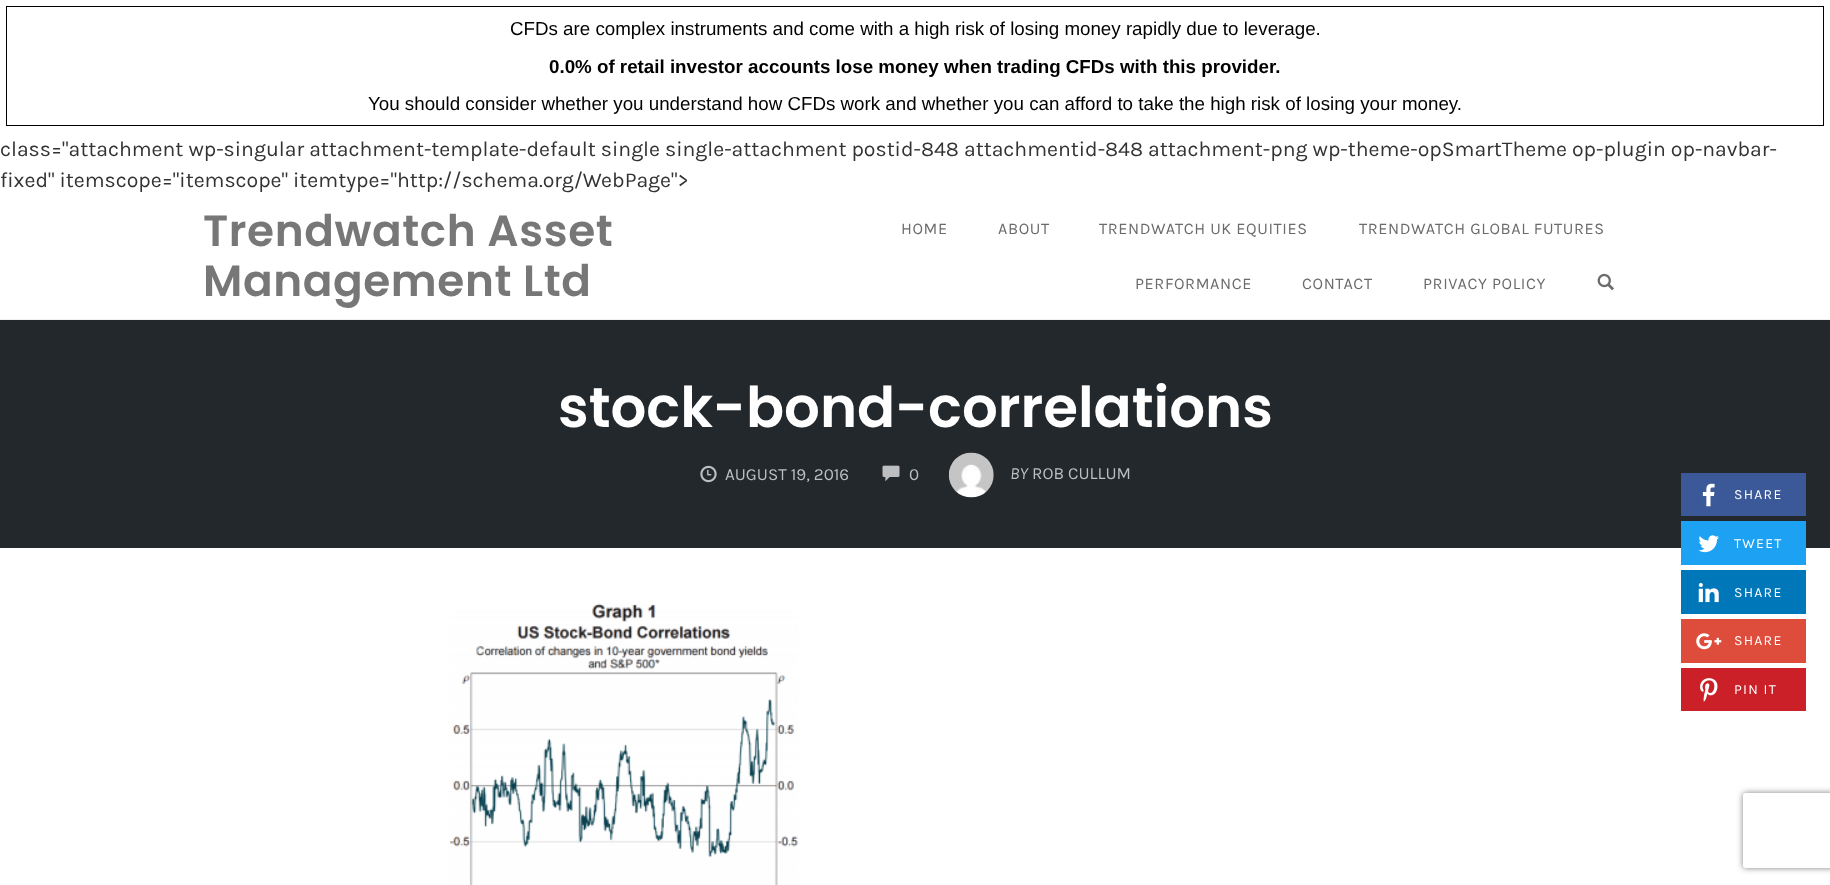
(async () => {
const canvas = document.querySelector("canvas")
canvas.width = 1830
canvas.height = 885
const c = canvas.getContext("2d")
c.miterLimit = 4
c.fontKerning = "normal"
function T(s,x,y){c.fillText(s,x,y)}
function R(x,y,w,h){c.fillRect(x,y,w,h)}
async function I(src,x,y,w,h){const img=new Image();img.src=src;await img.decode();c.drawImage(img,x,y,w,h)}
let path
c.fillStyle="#fff"
R(0,0,1830,885)
c.strokeStyle="#000"
c.strokeRect(6.5,6.5,1817,119)
c.font="18.75px Liberation Sans"
c.fillStyle="#000"
T("CFDs are complex instruments and come with a high risk of losing money rapidly due to leverage.",510,35)
c.font="bold 18.75px Liberation Sans"
T("0.0% of retail investor accounts lose money when trading CFDs with this provider.",549,73)
c.font="18.75px Liberation Sans"
T("You should consider whether you understand how CFDs work and whether you can afford to take the high risk of losing your money.",368,110)
c.font="21.25px Karla"
c.fillStyle="#333"
T("class=\"attachment wp-singular attachment-template-default single single-attachment postid-848 attachmentid-848 attachment-png wp-theme-opSmartTheme op-plugin op-navbar-",0,156)
T("fixed\" itemscope=\"itemscope\" itemtype=\"http://schema.org/WebPage\">",0,187)
c.fillStyle="#f0f0f0"
R(0,319,1830,1)
c.letterSpacing="0.6px"
c.font="600 43.75px Poppins"
c.fillStyle="#777"
T("Trendwatch Asset",203,246)
T("Management Ltd",203,296)
c.font="16.25px Karla"
c.fillStyle="#6b6b6b"
T("HOME",901,234)
T("ABOUT",998,234)
T("TRENDWATCH UK EQUITIES",1099,234)
T("TRENDWATCH GLOBAL FUTURES",1359,234)
T("PERFORMANCE",1135,289)
T("CONTACT",1302,289)
T("PRIVACY POLICY",1423,289)
await I("1.png",1597,273,17,17)
c.fillStyle="#23282d"
R(0,320,1830,228)
c.letterSpacing="0px"
c.font="600 56.25px Poppins"
c.fillStyle="#fff"
T("stock-bond-correlations",558,427)
await I("2.png",700,465,17,18)
c.font="17px Karla"
c.fillStyle="#bdbfc0"
T("AUGUST 19, 2016",725,480)
await I("3.png",882,465,18,17)
T("0",909,480)
await I("4.png",948,452,46,46)
c.font="italic 17px Karla"
T("BY",1010,479)
c.font="17px Karla"
T("ROB CULLUM",1032,479)
await I("5.png",449,603,349,282)
c.fillStyle="#3b5998"
R(1681,473,125,43)
await I("6.png",1702,483,13,24)
c.letterSpacing="1.25px"
c.font="14px Karla"
c.fillStyle="#fff"
T("SHARE",1734,499)
c.fillStyle="#1da1f3"
R(1681,521,125,44)
await I("7.png",1698,535,21,18)
c.fillStyle="#fff"
T("TWEET",1734,548)
c.fillStyle="#0077b9"
R(1681,570,125,44)
await I("8.png",1698,582,21,21)
c.fillStyle="#fff"
T("SHARE",1734,597)
c.fillStyle="#de4d3b"
R(1681,619,125,44)
await I("9.png",1696,633,26,17)
c.fillStyle="#fff"
T("SHARE",1734,645)
c.fillStyle="#cb2027"
R(1681,668,125,43)
await I("10.png",1700,678,18,24)
c.fillStyle="#fff"
T("PIN IT",1734,694)
c.save()
path = new Path2D("M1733 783h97v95h-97zm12.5 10h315c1.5 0 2.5 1 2.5 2.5v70c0 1.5-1 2.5-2.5 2.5h-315c-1.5 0-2.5-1-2.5-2.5v-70c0-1.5 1-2.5 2.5-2.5z")
c.clip(path,"evenodd")
c.fillStyle="#808080"
c.filter="blur(3px)"
c.beginPath()
c.roundRect(1743,793,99,75,2.5)
c.fill()
c.filter="none"
c.restore()
})()
